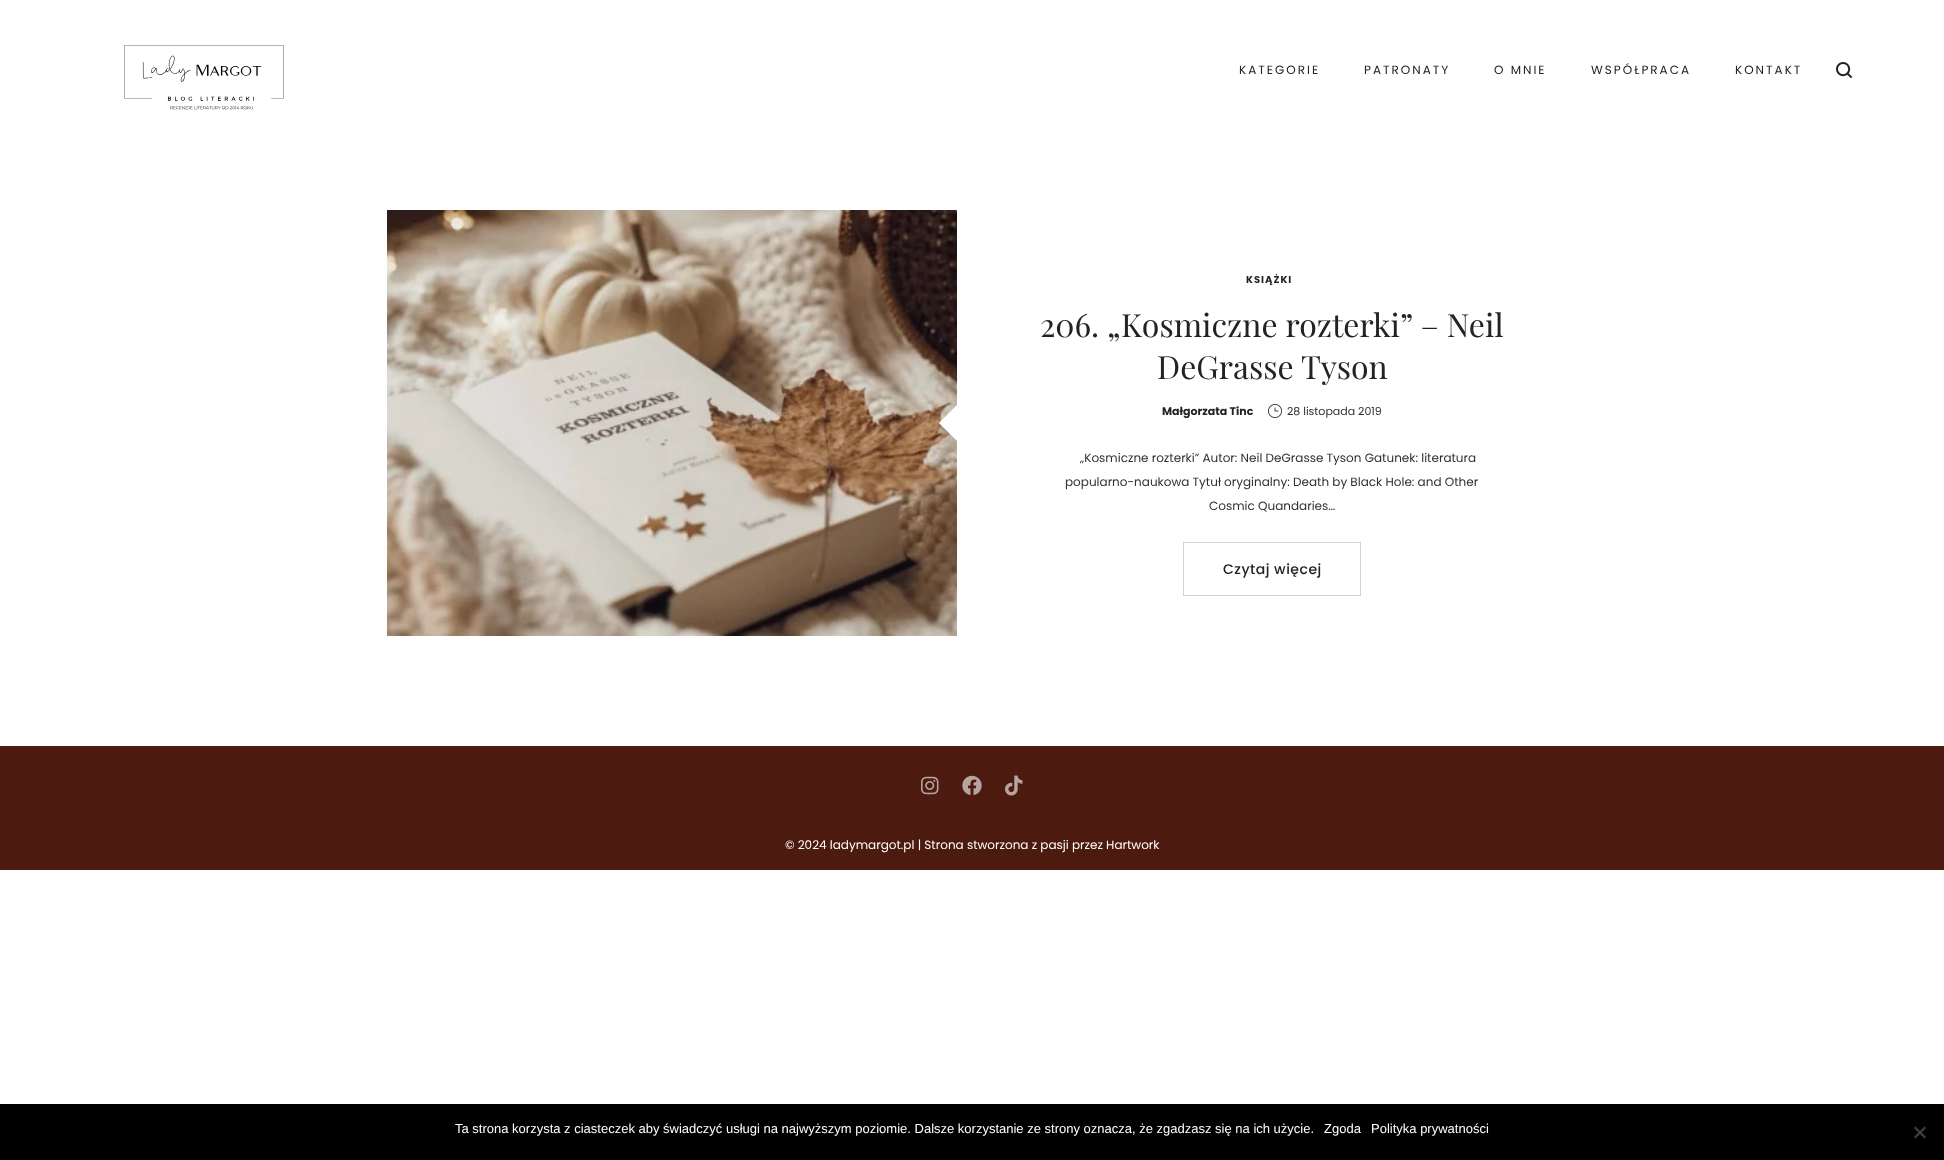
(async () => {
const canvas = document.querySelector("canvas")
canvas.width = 1944
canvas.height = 1160
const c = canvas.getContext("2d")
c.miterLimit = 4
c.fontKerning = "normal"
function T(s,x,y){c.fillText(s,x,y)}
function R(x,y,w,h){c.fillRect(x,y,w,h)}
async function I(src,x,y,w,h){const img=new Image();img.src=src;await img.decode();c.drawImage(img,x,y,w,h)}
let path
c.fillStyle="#fff"
R(0,0,1944,1160)
await I("1.png",124,45,160,65)
c.letterSpacing="2px"
c.font="12px Poppins"
c.fillStyle="#232324"
T("KATEGORIE",1239,74)
T("PATRONATY",1364,74)
T("O MNIE",1494,74)
T("WSPÓŁPRACA",1591,74)
T("KONTAKT",1735,74)
await I("2.png",1836,62,16,16)
await I("3.png",387,210,570,426)
c.fillStyle="#fff"
path = new Path2D("M957 405v36l-18-18z")
c.fill(path)
c.letterSpacing="1px"
c.font="bold 10px Poppins"
c.fillStyle="#232324"
T("KSIĄŻKI",1246,283)
c.letterSpacing="0px"
c.font="32px Playfair Display"
T("206. „Kosmiczne rozterki” – Neil",1040,337)
T("DeGrasse Tyson",1157,379)
c.font="bold 11px Poppins"
T("Małgorzata Tinc",1162,415)
await I("4.png",1268,404,14,14)
c.font="11px Poppins"
c.fillStyle="#303030"
T("28 listopada 2019",1287,415)
c.font="12px Poppins"
T("„Kosmiczne rozterki” Autor: Neil DeGrasse Tyson Gatunek: literatura",1080,462)
T("popularno-naukowa Tytuł oryginalny: Death by Black Hole: and Other",1065,486)
T("Cosmic Quandaries…",1209,510)
c.strokeStyle="#d3d3d3"
c.strokeRect(1183.5,542.5,177,53)
c.letterSpacing="0.5px"
c.font="500 14px Poppins"
c.fillStyle="#232324"
T("Czytaj więcej",1223,574)
c.fillStyle="#4c1a0f"
R(0,746,1944,124)
await I("5.png",921,776,18,19)
await I("6.png",962,775,20,20)
await I("7.png",1005,775,18,21)
c.letterSpacing="0px"
c.font="12px Poppins"
c.fillStyle="#fff"
T("© 2024 ladymargot.pl | Strona stworzona z pasji przez Hartwork",785,849)
c.fillStyle="#000"
R(0,1104,1944,56)
c.font="13px Liberation Sans"
c.fillStyle="#fff"
T("Ta strona korzysta z ciasteczek aby świadczyć usługi na najwyższym poziomie. Dalsze korzystanie ze strony oznacza, że zgadzasz się na ich użycie.",455,1133)
T("Zgoda",1324,1133)
T("Polityka prywatności",1371,1133)
c.fillStyle="#404040"
path = new Path2D("M1924.5 1126.5l1.5 1.5l-10.5 10.5l-1.5-1.5z")
c.fill(path)
path = new Path2D("M1914 1128l1.5-1.5l10.5 10.5l-1.5 1.5z")
c.fill(path)
})()
